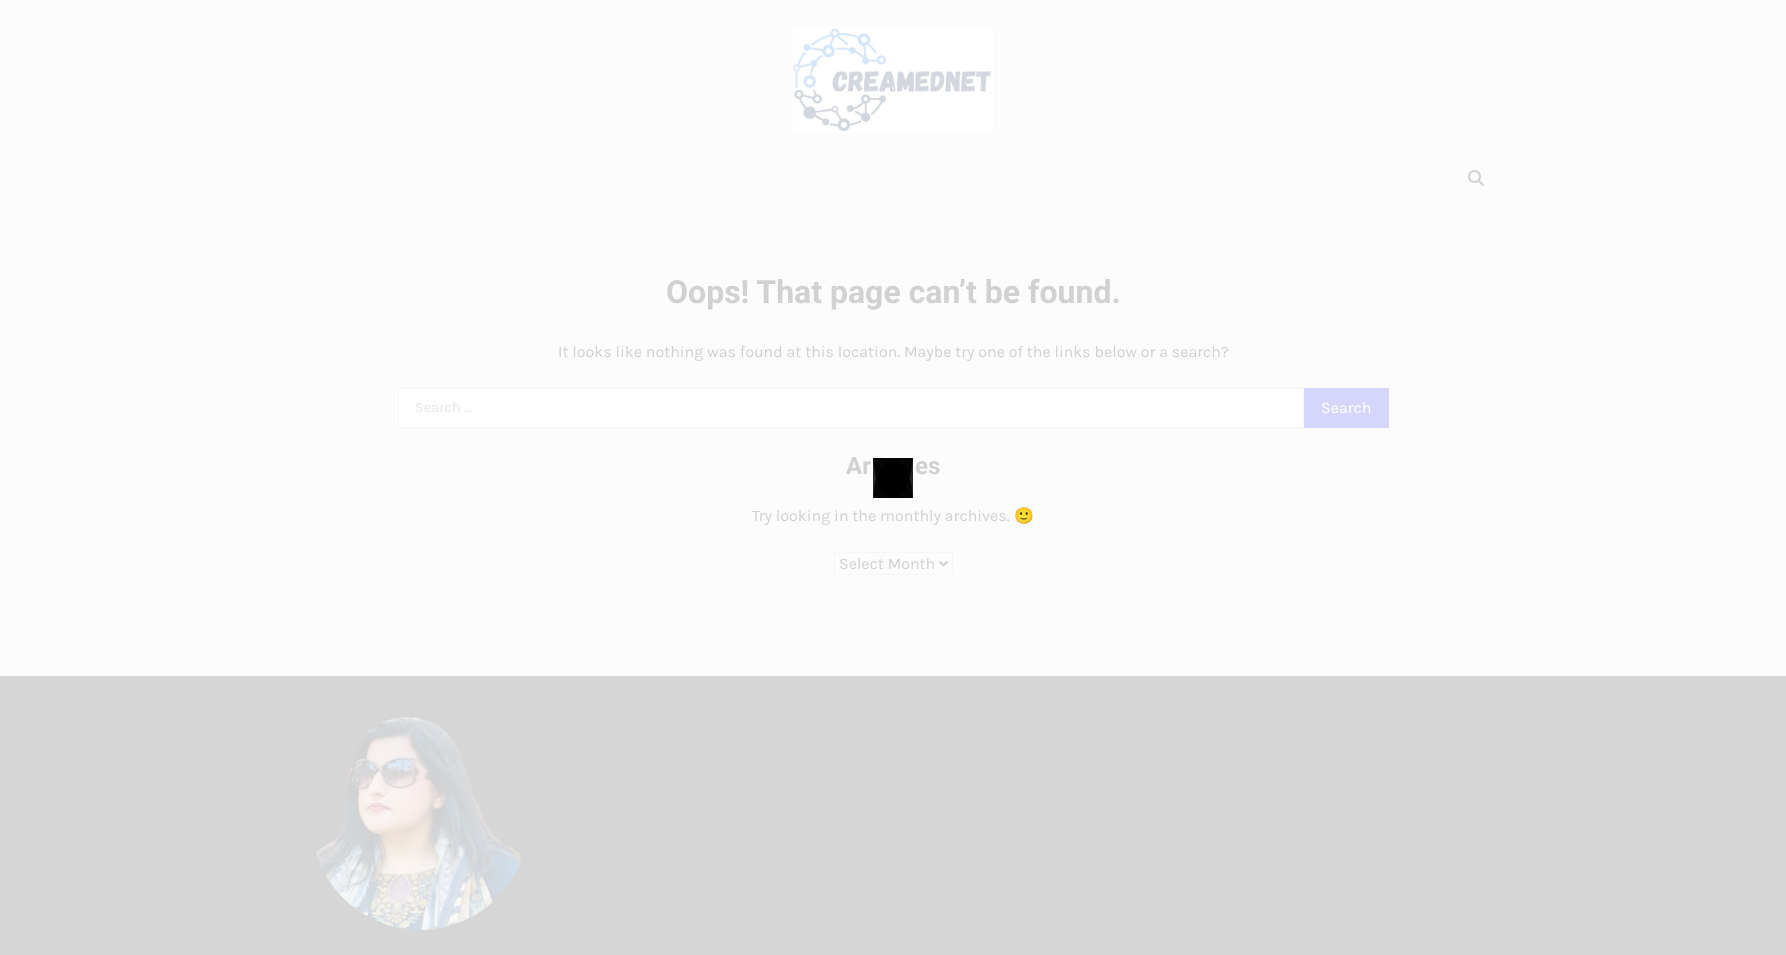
(async () => {
const canvas = document.querySelector("canvas")
canvas.width = 1786
canvas.height = 955
const c = canvas.getContext("2d")
c.miterLimit = 4
c.fontKerning = "normal"
function T(s,x,y){c.fillText(s,x,y)}
function R(x,y,w,h){c.fillRect(x,y,w,h)}
async function I(src,x,y,w,h){const img=new Image();img.src=src;await img.decode();c.drawImage(img,x,y,w,h)}
let gradient, path
c.fillStyle="#fcfcfc"
R(0,0,1786,955)
await I("1.png",793,26,200,107)
await I("2.png",1468,170,16,16)
c.font="bold 32px Roboto"
c.fillStyle="#d1d1d1"
T("Oops! That page can’t be found.",666,303)
c.font="16px Karla"
T("It looks like nothing was found at this location. Maybe try one of the links below or a search?",558,357)
c.fillStyle="#fff"
c.beginPath()
c.rect(398.5,388.5,905,39)
c.fill()
c.strokeStyle="#f7f6f7"
c.stroke()
c.font="14.5px Karla"
c.fillStyle="#e6e6e6"
T("Search …",415,412)
c.fillStyle="#d6d5fc"
R(1304,388,85,40)
c.font="16px Karla"
c.fillStyle="#fff"
T("Search",1321,413)
c.font="bold 24px Roboto"
c.fillStyle="#d1d1d1"
T("Ar",846,474)
T("es",915,474)
c.font="16px Karla"
T("Try looking in the monthly archives.",752,521)
c.font="16px Noto Color Emoji"
T("🙂",1014,521)
c.strokeStyle="#f6f6f6"
c.strokeRect(834.5,552.5,118,22)
path = new Path2D("M939.5 561.5l4 4l4-4")
c.strokeStyle="#d1d1d1"
c.lineWidth=2
c.stroke(path)
c.font="16px Karla"
T("Select Month",839,569)
gradient = c.createRadialGradient(893,229,0,893,229,20)
gradient.addColorStop(.93,"#00000078")
gradient.addColorStop(1,"#00000000")
c.fillStyle = gradient
c.beginPath()
c.rect(873,458,40,40)
c.save()
c.clip()
c.scale(1,40 / 20)
c.fillRect(0,0,1786,478)
c.restore()
gradient = c.createRadialGradient(893,249,0,893,249,20)
gradient.addColorStop(.93,"#00000078")
gradient.addColorStop(1,"#00000000")
c.fillStyle = gradient
c.beginPath()
c.rect(873,458,40,40)
c.save()
c.clip()
c.scale(1,40 / 20)
c.fillRect(0,0,1786,478)
c.restore()
c.fillStyle="#00000078"
R(873,458,40,40)
gradient = c.createRadialGradient(893,229,0,893,229,20)
gradient.addColorStop(.93,"#00000078")
gradient.addColorStop(1,"#00000000")
c.fillStyle = gradient
c.beginPath()
c.rect(873,458,40,40)
c.save()
c.clip()
c.scale(1,40 / 20)
c.fillRect(0,0,1786,478)
c.restore()
gradient = c.createRadialGradient(893,249,0,893,249,20)
gradient.addColorStop(.93,"#00000078")
gradient.addColorStop(1,"#00000000")
c.fillStyle = gradient
c.beginPath()
c.rect(873,458,40,40)
c.save()
c.clip()
c.scale(1,40 / 20)
c.fillRect(0,0,1786,478)
c.restore()
c.fillStyle="#00000078"
R(873,458,40,40)
gradient = c.createRadialGradient(893,229,0,893,229,20)
gradient.addColorStop(.93,"#00000078")
gradient.addColorStop(1,"#00000000")
c.fillStyle = gradient
c.beginPath()
c.rect(873,458,40,39)
c.save()
c.clip()
c.scale(1,40 / 20)
c.fillRect(0,0,1786,478)
c.restore()
gradient = c.createRadialGradient(893,249,0,893,249,20)
gradient.addColorStop(.93,"#00000078")
gradient.addColorStop(1,"#00000000")
c.fillStyle = gradient
c.beginPath()
c.rect(873,477,40,21)
c.save()
c.clip()
c.scale(1,40 / 20)
c.fillRect(0,0,1786,478)
c.restore()
c.fillStyle="#00000078"
R(873,458,40,40)
c.fillStyle="#d6d6d6"
R(0,676,1786,279)
await I("3.png",315,717,207,213)
})()
